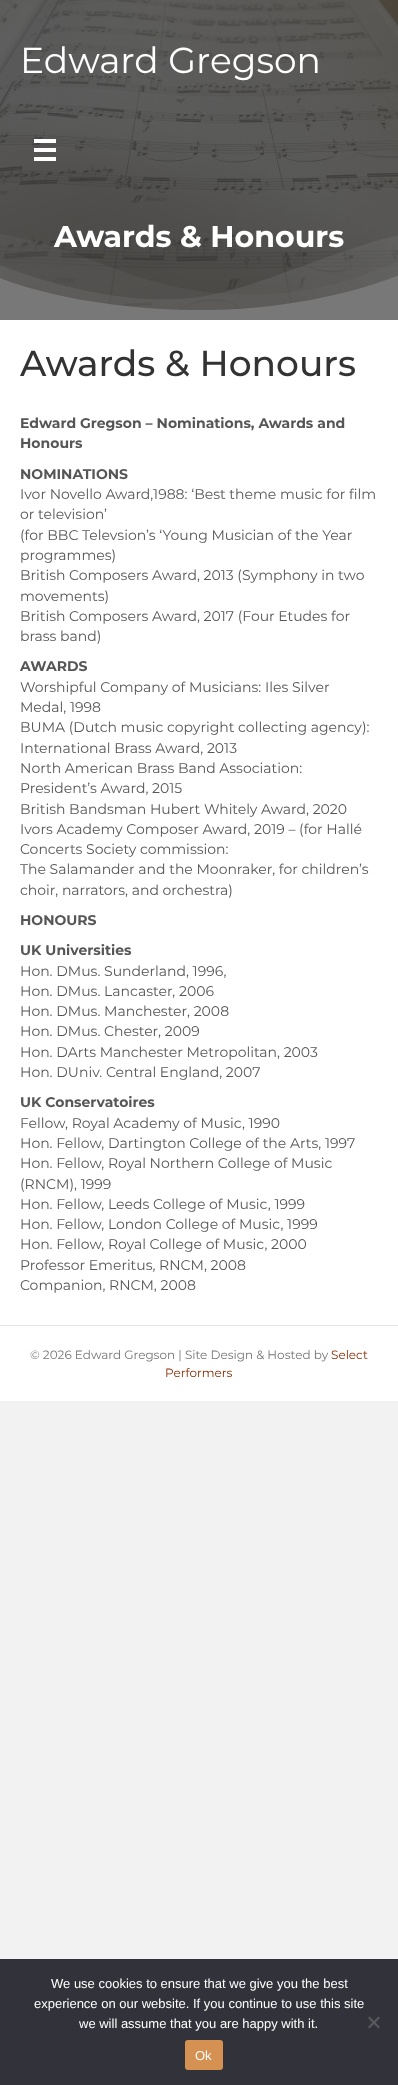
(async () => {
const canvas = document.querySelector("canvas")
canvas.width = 398
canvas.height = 2085
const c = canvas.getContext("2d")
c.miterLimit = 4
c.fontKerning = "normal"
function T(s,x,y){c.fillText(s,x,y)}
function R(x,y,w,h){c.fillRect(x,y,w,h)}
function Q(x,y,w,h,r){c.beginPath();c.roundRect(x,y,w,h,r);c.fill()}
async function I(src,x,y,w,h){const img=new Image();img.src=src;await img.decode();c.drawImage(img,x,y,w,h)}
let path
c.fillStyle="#f2f2f2"
R(0,0,398,2085)
await I("1.png",0,0,398,310)
c.font="36px Montserrat"
c.fillStyle="#fff"
T("Edward Gregson",20,73)
R(34,139,22,4)
R(34,148,22,4)
R(34,157,22,4)
c.save()
c.beginPath()
c.rect(0,220,398,100)
c.clip()
c.fillStyle="#78787826"
path = new Path2D("M0 234c0 0 35 3 119 36c104 40 205 27 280-10l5 28l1 36h-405z")
c.fill(path)
c.restore()
c.fillStyle="#7878784d"
path = new Path2D("M0 265c0 0 108 45 199 32c62-9 131-47 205-63v86h-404z")
c.fill(path)
c.font="bold 30px Montserrat"
c.fillStyle="#fff"
T("Awards & Honours",54,247)
c.fillStyle="#787878"
path = new Path2D("M0 278c0 0 75 32 202 32c116 0 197-35 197-35v45h-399z")
c.fill(path)
c.fillStyle="#fff"
R(0,320,398,1005)
c.font="500 36px Montserrat"
c.fillStyle="#333"
T("Awards & Honours",20,376)
c.font="bold 14px Montserrat"
c.fillStyle="#565656"
T("Edward Gregson – Nominations, Awards and",20,428)
T("Honours",20,448)
T("NOMINATIONS",20,479)
c.font="14px Montserrat"
T("Ivor Novello Award,1988: ‘Best theme music for film",20,499)
T("or television’",20,519)
T("(for BBC Televsion’s ‘Young Musician of the Year",20,540)
T("programmes)",20,560)
T("British Composers Award, 2013 (Symphony in two",20,580)
T("movements)",20,601)
T("British Composers Award, 2017 (Four Etudes for",20,621)
T("brass band)",20,641)
c.font="bold 14px Montserrat"
T("AWARDS",20,671)
c.font="14px Montserrat"
T("Worshipful Company of Musicians: Iles Silver",20,692)
T("Medal, 1998",20,712)
T("BUMA (Dutch music copyright collecting agency):",20,732)
T("International Brass Award, 2013",20,753)
T("North American Brass Band Association:",20,773)
T("President’s Award, 2015",20,793)
T("British Bandsman Hubert Whitely Award, 2020",20,814)
T("Ivors Academy Composer Award, 2019 – (for Hallé",20,834)
T("Concerts Society commission:",20,854)
T("The Salamander and the Moonraker, for children’s",20,874)
T("choir, narrators, and orchestra)",20,895)
c.font="bold 14px Montserrat"
T("HONOURS",20,925)
T("UK Universities",20,955)
c.font="14px Montserrat"
T("Hon. DMus. Sunderland, 1996,",20,976)
T("Hon. DMus. Lancaster, 2006",20,996)
T("Hon. DMus. Manchester, 2008",20,1016)
T("Hon. DMus. Chester, 2009",20,1036)
T("Hon. DArts Manchester Metropolitan, 2003",20,1057)
T("Hon. DUniv. Central England, 2007",20,1077)
c.font="bold 14px Montserrat"
T("UK Conservatoires",20,1107)
c.font="14px Montserrat"
T("Fellow, Royal Academy of Music, 1990",20,1128)
T("Hon. Fellow, Dartington College of the Arts, 1997",20,1148)
T("Hon. Fellow, Royal Northern College of Music",20,1168)
T("(RNCM), 1999",20,1189)
T("Hon. Fellow, Leeds College of Music, 1999",20,1209)
T("Hon. Fellow, London College of Music, 1999",20,1229)
T("Hon. Fellow, Royal College of Music, 2000",20,1249)
T("Professor Emeritus, RNCM, 2008",20,1270)
T("Companion, RNCM, 2008",20,1290)
c.fillStyle="#fff"
R(0,1326,398,75)
c.fillStyle="#e6e6e6"
R(0,1325,398,1)
c.font="12px Montserrat"
c.fillStyle="#757575"
T("© 2026 Edward Gregson | Site Design & Hosted by",30,1359)
c.fillStyle="#872d01"
T("Select",331,1359)
T("Performers",165,1377)
c.fillStyle="#32323a"
R(0,1959,398,126)
c.font="13px Liberation Sans"
c.fillStyle="#fff"
T("We use cookies to ensure that we give you the best",51,1988)
T("experience on our website. If you continue to use this site",34,2008)
T("we will assume that you are happy with it.",79,2028)
c.fillStyle="#59595d"
path = new Path2D("M378.5 2016.5l1.5 1.5l-10.5 10.5l-1.5-1.5z")
c.fill(path)
path = new Path2D("M368 2018l1.5-1.5l10.5 10.5l-1.5 1.5z")
c.fill(path)
c.fillStyle="#d49152"
Q(185,2040,38,30,3)
c.fillStyle="#fff"
T("Ok",195,2060)
})()
